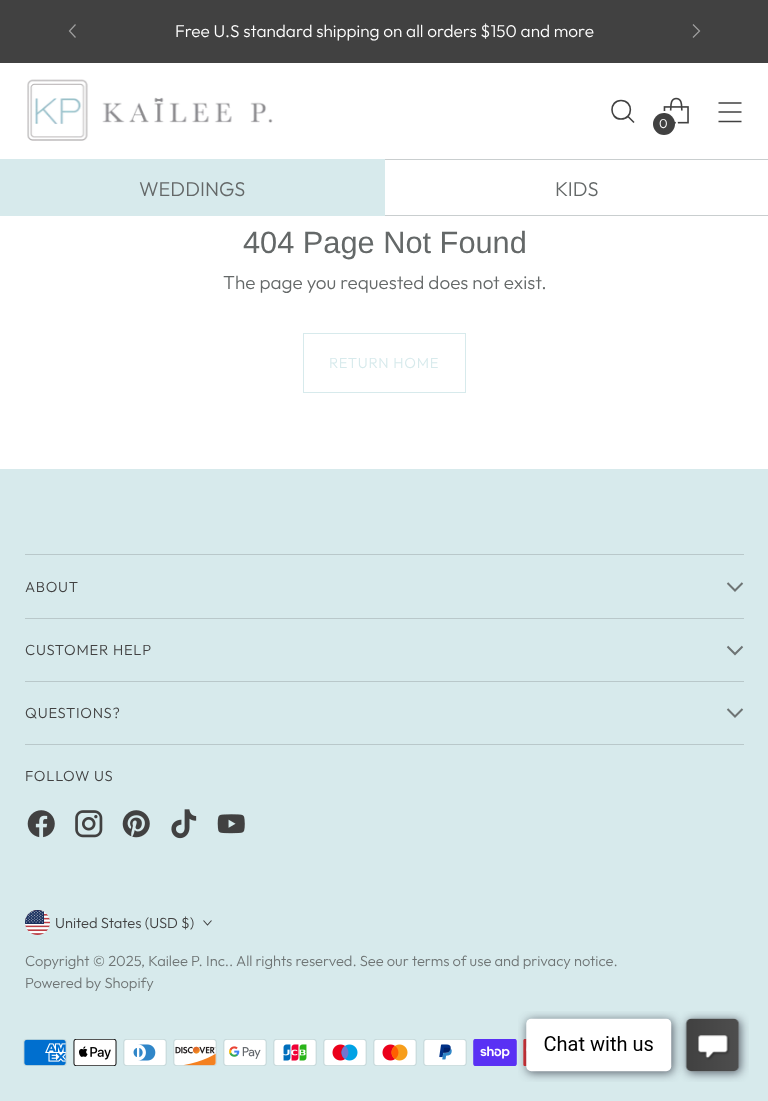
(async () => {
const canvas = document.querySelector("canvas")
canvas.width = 768
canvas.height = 1101
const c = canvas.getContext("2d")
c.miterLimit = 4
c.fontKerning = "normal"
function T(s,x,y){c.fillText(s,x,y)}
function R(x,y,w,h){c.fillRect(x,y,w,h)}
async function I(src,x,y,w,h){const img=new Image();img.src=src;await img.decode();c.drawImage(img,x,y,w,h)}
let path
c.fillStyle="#fff"
R(0,0,768,1101)
c.fillStyle="#414141"
R(0,0,768,63)
c.font="300 17.2px Outfit"
c.fillStyle="#fff"
T("Free U.S standard shipping on all orders $150 and more",175,37)
path = new Path2D("M75.5 24.5l-6 6.5l6 6.5")
c.strokeStyle="#a0a0a0"
c.lineWidth=1.2
c.stroke(path)
path = new Path2D("M693 37.5l6.5-6.5l-6.5-6.5")
c.stroke(path)
await I("1.png",27,79,246,62)
path = new Path2D("M621 119c12.5 0 12.5-18.5 0-18.5c-12 0-12 18.5 0 18.5z")
c.strokeStyle="#414141"
c.lineWidth=1.6
c.lineCap="round"
c.stroke(path)
path = new Path2D("M628 116.5l6 6")
c.lineCap="butt"
c.stroke(path)
path = new Path2D("M718.5 112h23m-23-9h23m-23 18.5h23")
c.stroke(path)
await I("2.png",663,97,26,27)
c.beginPath()
c.arc(664.5,124.5,12.5,0,7)
c.strokeStyle="#fff"
c.lineWidth=2
c.stroke()
c.fillStyle="#414141"
c.beginPath()
c.arc(664,124,11,0,7)
c.fill()
c.font="300 13px Outfit"
c.fillStyle="#fff"
T("0",659,128)
c.fillStyle="#d7eaec"
R(0,159,385,57)
c.font="300 20px Outfit"
c.fillStyle="#646868"
T("WEDDINGS",139,196)
c.fillStyle="#c9cecf"
R(385,159,383,1)
R(385,215,383,1)
c.fillStyle="#646868"
T("KIDS",555,196)
c.font="30.75px Liberation Sans"
T("404 Page Not Found",243,253)
c.font="300 18.9px Outfit"
T("The page you requested does not exist.",223,289)
c.strokeStyle="#d7eaec"
c.lineWidth=1
c.strokeRect(303.5,333.5,162,59)
c.letterSpacing="0.75px"
c.font="300 14.7px Outfit"
c.fillStyle="#d7eaec"
T("RETURN HOME",329,368)
R(0,469,768,632)
c.fillStyle="#b9c8ca"
R(25,554,719,1)
R(25,618,719,1)
c.fillStyle="#414141"
T("ABOUT",25,592)
path = new Path2D("M727.5 583l7.5 7.5l7.5-7.5")
c.strokeStyle="#6e7474"
c.lineWidth=2
c.stroke(path)
c.fillStyle="#b9c8ca"
R(25,681,719,1)
c.fillStyle="#414141"
T("CUSTOMER HELP",25,655)
path = new Path2D("M727.5 646.5l7.5 7.5l7.5-7.5")
c.stroke(path)
c.fillStyle="#b9c8ca"
R(25,744,719,1)
c.fillStyle="#414141"
T("QUESTIONS?",25,718)
path = new Path2D("M727.5 709l7.5 7.5l7.5-7.5")
c.stroke(path)
T("FOLLOW US",25,781)
await I("3.png",27,810,28,28)
await I("4.png",75,810,28,28)
await I("5.png",122,810,28,28)
await I("6.png",171,809,26,30)
await I("7.png",217,814,28,20)
await I("8.png",25,910,25,25)
c.letterSpacing="0px"
T("United States (USD $)",55,928)
path = new Path2D("M203.5 920.5l4 4.5l4-4.5")
c.strokeStyle="#414141"
c.lineWidth=1.1
c.stroke(path)
c.fillStyle="#6e7474"
T("Copyright © 2025, Kailee P. Inc..",25,966)
T("All rights reserved. See our terms of use and privacy notice.",236,966)
T("Powered by Shopify",25,988)
await I("9.png",23,1039,44,27)
await I("10.png",73,1039,44,27)
await I("11.png",123,1039,44,27)
await I("12.png",173,1039,44,27)
await I("13.png",223,1039,44,27)
await I("14.png",273,1039,44,27)
await I("15.png",323,1039,44,27)
await I("16.png",373,1039,44,27)
await I("17.png",423,1039,44,27)
await I("18.png",473,1039,44,27)
await I("19.png",523,1039,4,27)
await I("20.png",518,1011,231,71)
})()
